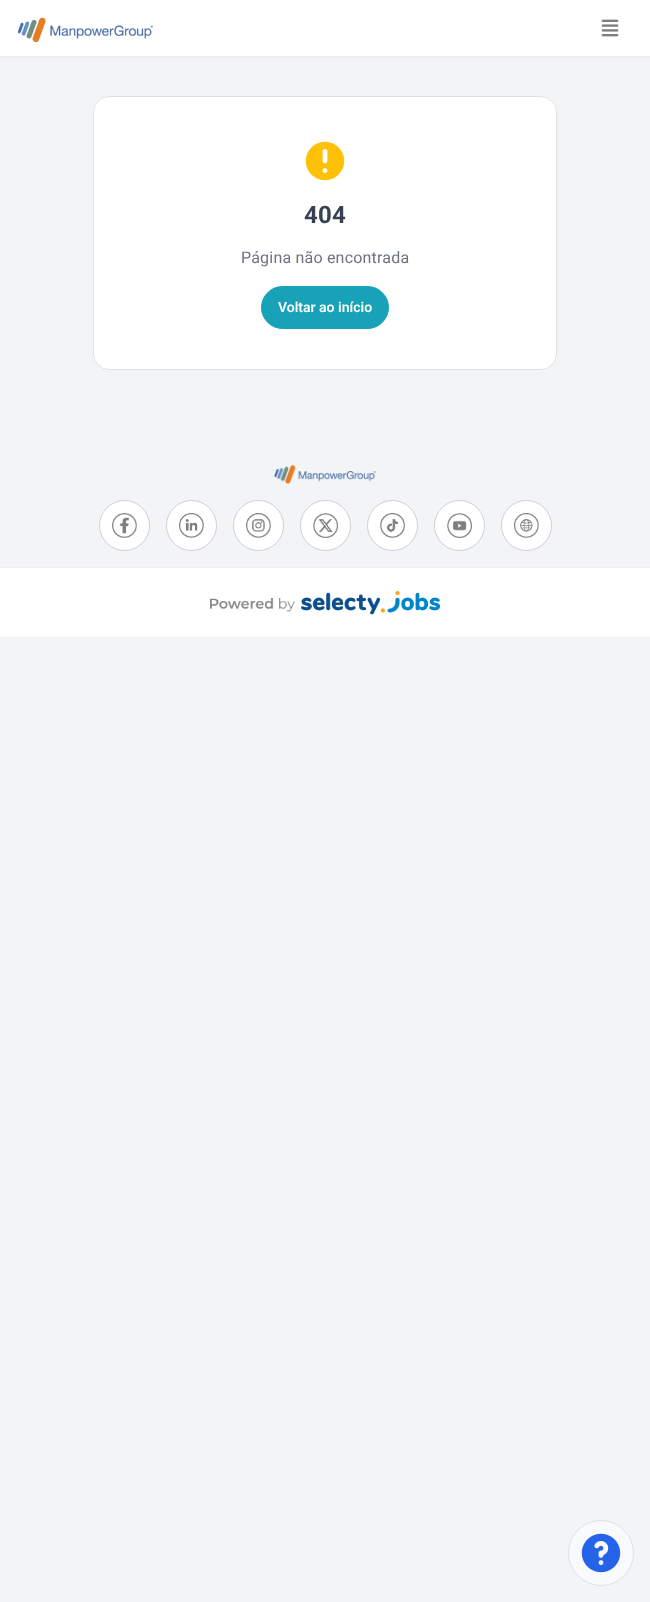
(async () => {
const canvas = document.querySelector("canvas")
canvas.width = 650
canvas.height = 1602
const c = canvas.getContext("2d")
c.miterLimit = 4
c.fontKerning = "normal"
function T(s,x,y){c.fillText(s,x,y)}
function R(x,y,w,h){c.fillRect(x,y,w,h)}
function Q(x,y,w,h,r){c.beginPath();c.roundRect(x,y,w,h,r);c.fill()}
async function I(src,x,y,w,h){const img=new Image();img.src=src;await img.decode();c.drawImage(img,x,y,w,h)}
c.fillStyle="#f3f4f6"
R(0,0,650,1602)
c.fillStyle="#0000000d"
c.filter="blur(1px)"
c.beginPath()
c.rect(0,1,650,56)
c.fill()
c.filter="none"
c.fillStyle="#fff"
R(0,0,650,56)
await I("1.png",18,17,135,26)
await I("2.png",601,19,18,18)
Q(93,96,464,274,16)
c.beginPath()
c.roundRect(93.5,96.5,463,273,15.5)
c.strokeStyle="#0000001f"
c.stroke()
await I("3.png",305,141,40,40)
c.letterSpacing="0.2px"
c.font="bold 24px Roboto"
c.fillStyle="#374151"
T("404",304,223)
c.font="16px Roboto"
c.fillStyle="#6b7280"
T("Página não encontrada",241,263)
c.fillStyle="#17a2b8"
c.beginPath()
c.roundRect(261.5,286.5,127,42,21)
c.fill()
c.strokeStyle="#17a2b8"
c.stroke()
c.letterSpacing="0px"
c.font="600 14px Roboto"
c.fillStyle="#fff"
T("Voltar ao início",278,312)
await I("4.png",274,464,102,21)
c.beginPath()
c.arc(124.5,525.5,25,0,7)
c.fill()
c.strokeStyle="#ccd0d7"
c.stroke()
await I("5.png",112,513,25,25)
c.beginPath()
c.arc(191.5,525.5,25,0,7)
c.fill()
c.stroke()
await I("6.png",179,513,25,25)
c.beginPath()
c.arc(258.5,525.5,25,0,7)
c.fill()
c.stroke()
await I("7.png",246,513,25,25)
c.beginPath()
c.arc(325.5,525.5,25,0,7)
c.fill()
c.stroke()
await I("8.png",313,513,25,25)
c.beginPath()
c.arc(392.5,525.5,25,0,7)
c.fill()
c.stroke()
await I("9.png",380,513,25,25)
c.beginPath()
c.arc(459.5,525.5,25,0,7)
c.fill()
c.stroke()
await I("10.png",447,513,25,25)
c.beginPath()
c.arc(526.5,525.5,25,0,7)
c.fill()
c.stroke()
await I("11.png",514,513,25,25)
R(0,568,650,69)
c.fillStyle="#efefef"
R(0,567,650,1)
await I("12.png",210,591,230,24)
c.fillStyle="#f9fafb"
c.beginPath()
c.arc(601,1553,32.5,0,7)
c.fill()
c.strokeStyle="#dee2e6"
c.stroke()
await I("13.png",581,1533,40,40)
})()
